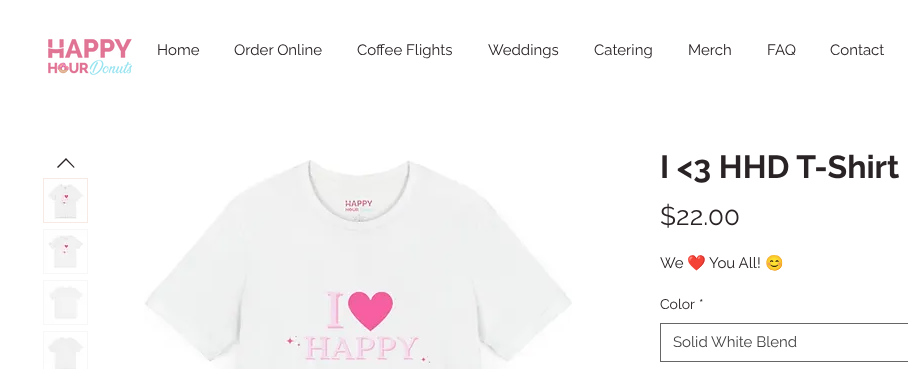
<svg xmlns="http://www.w3.org/2000/svg" width="908" height="369" viewBox="0 0 908 369">
  <rect width="100%" height="100%" fill="#ffffff"/>
  <image x="48" y="38" width="84" height="38" href="img1.png"/>
  <text x="157" y="55" font-family="Raleway" font-size="15" fill="#292325">Home</text>
  <text x="234" y="55" font-family="Raleway" font-size="15" fill="#292325">Order Online</text>
  <text x="357" y="55" font-family="Raleway" font-size="15" fill="#292325">Coffee Flights</text>
  <text x="488" y="55" font-family="Raleway" font-size="15" fill="#292325">Weddings</text>
  <text x="594" y="55" font-family="Raleway" font-size="15" fill="#292325">Catering</text>
  <text x="688" y="55" font-family="Raleway" font-size="15" fill="#292325">Merch</text>
  <text x="767" y="55" font-family="Raleway" font-size="15" fill="#292325">FAQ</text>
  <text x="830" y="55" font-family="Raleway" font-size="15" fill="#292325">Contact</text>
  <path d="M66 158L74.5 167L74 168L66 160L58 168L57 167Z" fill="#292325" fill-rule="evenodd"/>
  <rect x="43.5" y="178.5" width="44" height="44" fill="none" stroke="#f7e9e4"/>
  <image x="44" y="179" width="43" height="43" href="img2.png"/>
  <rect x="43" y="229" width="45" height="45" fill="#f7f7f7"/>
  <image x="44" y="230" width="43" height="43" href="img3.png"/>
  <rect x="43" y="280" width="45" height="45" fill="#f7f7f7"/>
  <image x="44" y="281" width="43" height="43" href="img4.png"/>
  <rect x="43" y="331" width="45" height="38" fill="#f7f7f7"/>
  <image x="44" y="332" width="43" height="37" href="img5.png"/>
  <image x="144" y="160" width="428" height="209" href="img6.png"/>
  <text x="660" y="178" font-family="Raleway" font-size="32" font-weight="bold" fill="#292325">I &lt;3 HHD T-Shirt</text>
  <text x="660" y="225" font-family="Raleway" font-size="26" fill="#292325">$22.00</text>
  <text x="660" y="268" font-family="Raleway" font-size="15" fill="#292325">We</text>
  <text x="687" y="268" font-family="Noto Color Emoji" font-size="15" fill="#292325">❤️</text>
  <text x="709" y="268" font-family="Raleway" font-size="15" fill="#292325">You All!</text>
  <text x="765" y="268" font-family="Noto Color Emoji" font-size="15" fill="#292325">😊</text>
  <text x="660" y="309" font-family="Raleway" font-size="14" fill="#292325">Color</text>
  <text x="699" y="309" font-family="Raleway" font-size="14" fill="#292325">*</text>
  <rect x="660.5" y="323.5" width="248" height="38" fill="none" stroke="#666666"/>
  <text x="673" y="347" font-family="Raleway" font-size="15" fill="#444444">Solid White Blend</text>
</svg>
